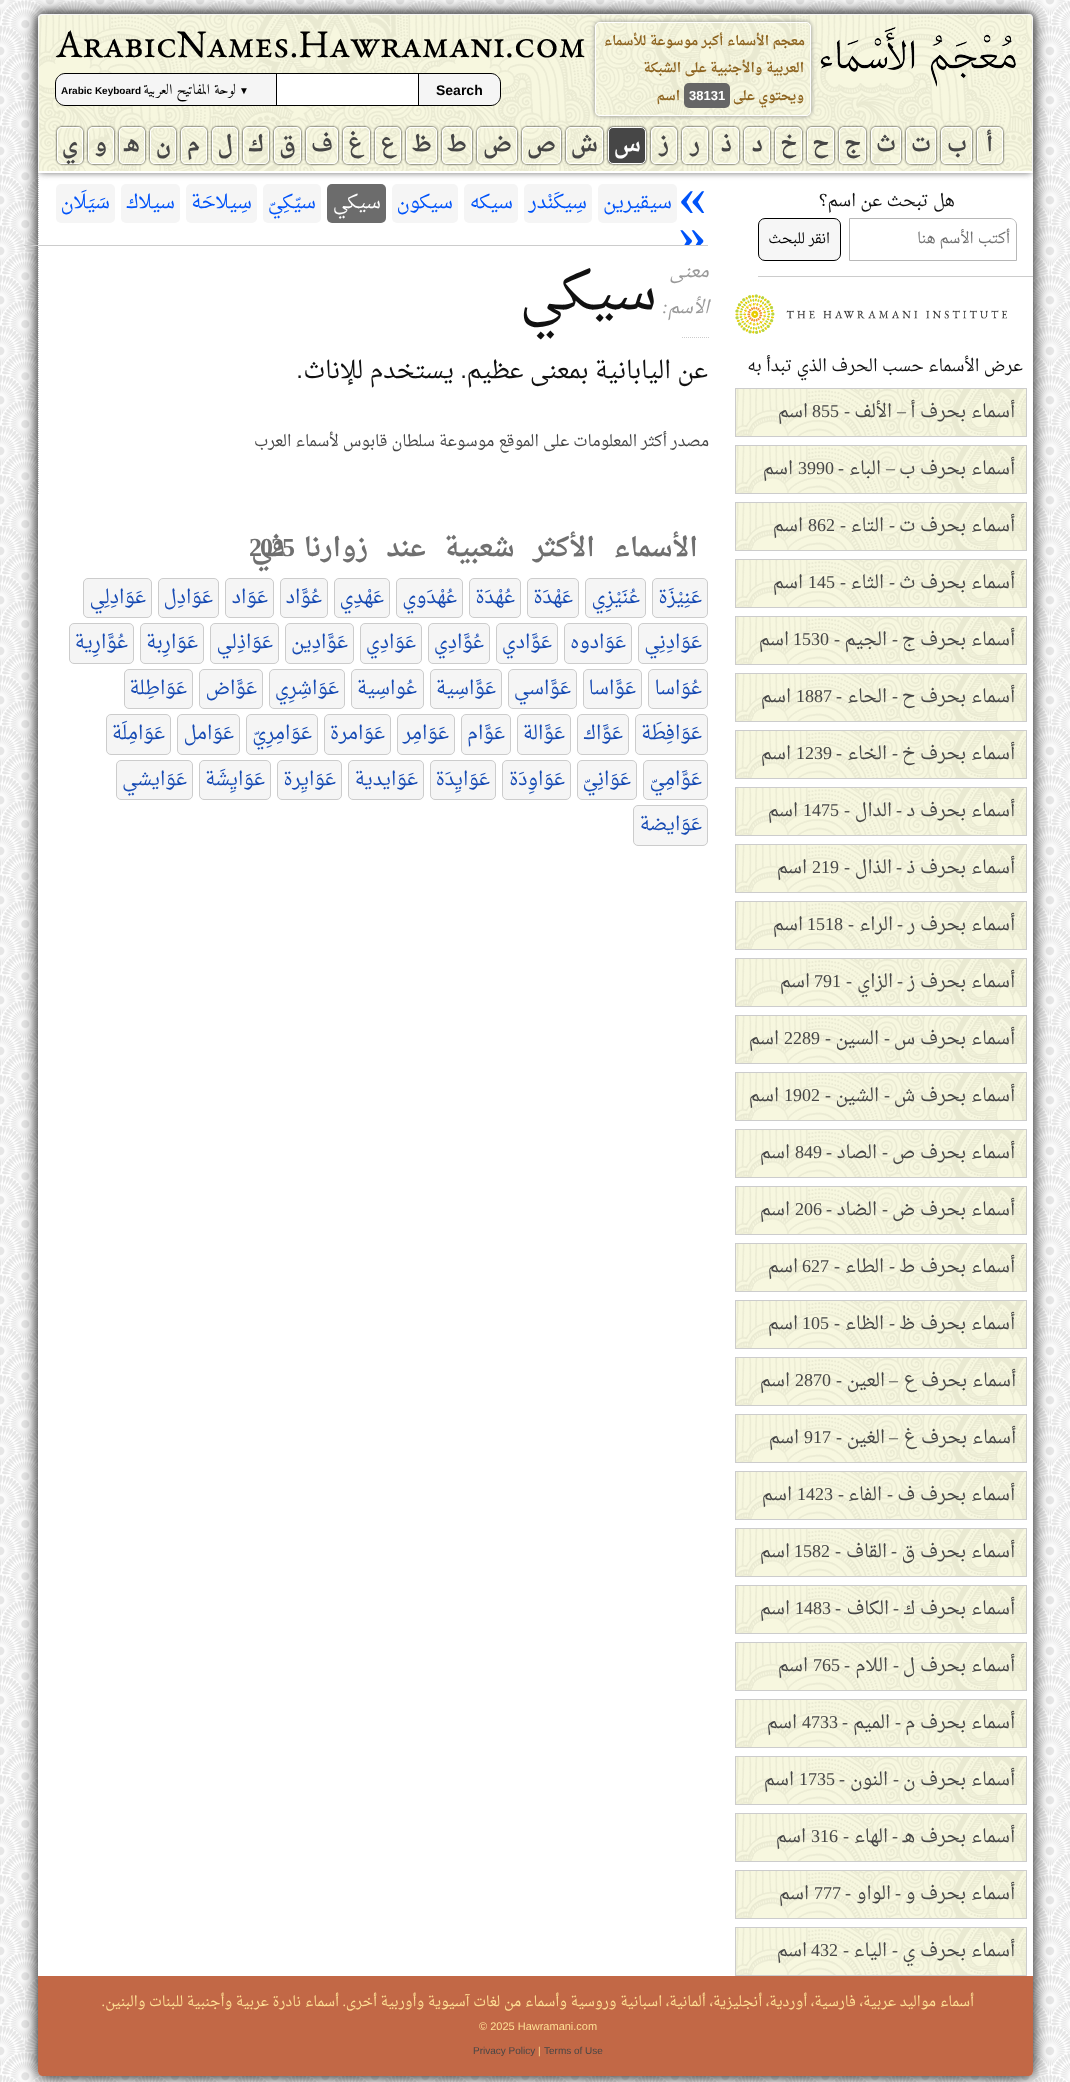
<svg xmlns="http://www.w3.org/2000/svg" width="1070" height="2082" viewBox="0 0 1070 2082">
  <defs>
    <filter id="blur1" x="-50%" y="-200%" width="200%" height="500%"><feGaussianBlur stdDeviation="8"/></filter>
    <filter id="blur2" x="-50%" y="-200%" width="200%" height="500%"><feGaussianBlur stdDeviation="3"/></filter>
    <clipPath id="clip1"><path d="M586 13H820V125H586ZM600 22H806C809 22 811 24 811 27V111C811 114 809 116 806 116H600C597 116 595 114 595 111V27C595 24 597 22 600 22Z" clip-rule="evenodd"/></clipPath>
    <filter id="blur3" x="-50%" y="-200%" width="200%" height="500%"><feGaussianBlur stdDeviation="2.5"/></filter>
    <clipPath id="clip2"><path d="M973 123H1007V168H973ZM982 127H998C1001 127 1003 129 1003 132V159C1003 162 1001 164 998 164H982C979 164 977 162 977 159V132C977 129 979 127 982 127Z" clip-rule="evenodd"/></clipPath>
    <filter id="blur4" x="-50%" y="-200%" width="200%" height="500%"><feGaussianBlur stdDeviation="1"/></filter>
    <clipPath id="clip3"><path d="M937 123H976V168H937ZM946 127H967C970 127 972 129 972 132V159C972 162 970 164 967 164H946C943 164 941 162 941 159V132C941 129 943 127 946 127Z" clip-rule="evenodd"/></clipPath>
    <clipPath id="clip4"><path d="M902 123H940V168H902ZM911 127H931C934 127 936 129 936 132V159C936 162 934 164 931 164H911C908 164 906 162 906 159V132C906 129 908 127 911 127Z" clip-rule="evenodd"/></clipPath>
    <clipPath id="clip5"><path d="M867 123H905V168H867ZM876 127H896C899 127 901 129 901 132V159C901 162 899 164 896 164H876C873 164 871 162 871 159V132C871 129 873 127 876 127Z" clip-rule="evenodd"/></clipPath>
    <clipPath id="clip6"><path d="M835 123H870V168H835ZM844 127H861C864 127 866 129 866 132V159C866 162 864 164 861 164H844C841 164 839 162 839 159V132C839 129 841 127 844 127Z" clip-rule="evenodd"/></clipPath>
    <clipPath id="clip7"><path d="M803 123H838V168H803ZM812 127H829C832 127 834 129 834 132V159C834 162 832 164 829 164H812C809 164 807 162 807 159V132C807 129 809 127 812 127Z" clip-rule="evenodd"/></clipPath>
    <clipPath id="clip8"><path d="M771 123H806V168H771ZM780 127H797C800 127 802 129 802 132V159C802 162 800 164 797 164H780C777 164 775 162 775 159V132C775 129 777 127 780 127Z" clip-rule="evenodd"/></clipPath>
    <clipPath id="clip9"><path d="M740 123H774V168H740ZM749 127H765C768 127 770 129 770 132V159C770 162 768 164 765 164H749C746 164 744 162 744 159V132C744 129 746 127 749 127Z" clip-rule="evenodd"/></clipPath>
    <clipPath id="clip10"><path d="M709 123H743V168H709ZM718 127H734C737 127 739 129 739 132V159C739 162 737 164 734 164H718C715 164 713 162 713 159V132C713 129 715 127 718 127Z" clip-rule="evenodd"/></clipPath>
    <clipPath id="clip11"><path d="M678 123H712V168H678ZM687 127H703C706 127 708 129 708 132V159C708 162 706 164 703 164H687C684 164 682 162 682 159V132C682 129 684 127 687 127Z" clip-rule="evenodd"/></clipPath>
    <clipPath id="clip12"><path d="M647 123H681V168H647ZM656 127H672C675 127 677 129 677 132V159C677 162 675 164 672 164H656C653 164 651 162 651 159V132C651 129 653 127 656 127Z" clip-rule="evenodd"/></clipPath>
    <clipPath id="clip13"><path d="M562 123H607V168H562ZM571 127H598C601 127 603 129 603 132V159C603 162 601 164 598 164H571C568 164 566 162 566 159V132C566 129 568 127 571 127Z" clip-rule="evenodd"/></clipPath>
    <clipPath id="clip14"><path d="M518 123H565V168H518ZM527 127H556C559 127 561 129 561 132V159C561 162 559 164 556 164H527C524 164 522 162 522 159V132C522 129 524 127 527 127Z" clip-rule="evenodd"/></clipPath>
    <clipPath id="clip15"><path d="M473 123H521V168H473ZM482 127H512C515 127 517 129 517 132V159C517 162 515 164 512 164H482C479 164 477 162 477 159V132C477 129 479 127 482 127Z" clip-rule="evenodd"/></clipPath>
    <clipPath id="clip16"><path d="M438 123H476V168H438ZM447 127H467C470 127 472 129 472 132V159C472 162 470 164 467 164H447C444 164 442 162 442 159V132C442 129 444 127 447 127Z" clip-rule="evenodd"/></clipPath>
    <clipPath id="clip17"><path d="M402 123H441V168H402ZM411 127H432C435 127 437 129 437 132V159C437 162 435 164 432 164H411C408 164 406 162 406 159V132C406 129 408 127 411 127Z" clip-rule="evenodd"/></clipPath>
    <clipPath id="clip18"><path d="M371 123H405V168H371ZM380 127H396C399 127 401 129 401 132V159C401 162 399 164 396 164H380C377 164 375 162 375 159V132C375 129 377 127 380 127Z" clip-rule="evenodd"/></clipPath>
    <clipPath id="clip19"><path d="M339 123H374V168H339ZM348 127H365C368 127 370 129 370 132V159C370 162 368 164 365 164H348C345 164 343 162 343 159V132C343 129 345 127 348 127Z" clip-rule="evenodd"/></clipPath>
    <clipPath id="clip20"><path d="M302 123H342V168H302ZM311 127H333C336 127 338 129 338 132V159C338 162 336 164 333 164H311C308 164 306 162 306 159V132C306 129 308 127 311 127Z" clip-rule="evenodd"/></clipPath>
    <clipPath id="clip21"><path d="M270 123H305V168H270ZM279 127H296C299 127 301 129 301 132V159C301 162 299 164 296 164H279C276 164 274 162 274 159V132C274 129 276 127 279 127Z" clip-rule="evenodd"/></clipPath>
    <clipPath id="clip22"><path d="M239 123H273V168H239ZM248 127H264C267 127 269 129 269 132V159C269 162 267 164 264 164H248C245 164 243 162 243 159V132C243 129 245 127 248 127Z" clip-rule="evenodd"/></clipPath>
    <clipPath id="clip23"><path d="M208 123H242V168H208ZM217 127H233C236 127 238 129 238 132V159C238 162 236 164 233 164H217C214 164 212 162 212 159V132C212 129 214 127 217 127Z" clip-rule="evenodd"/></clipPath>
    <clipPath id="clip24"><path d="M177 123H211V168H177ZM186 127H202C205 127 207 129 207 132V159C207 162 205 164 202 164H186C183 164 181 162 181 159V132C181 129 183 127 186 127Z" clip-rule="evenodd"/></clipPath>
    <clipPath id="clip25"><path d="M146 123H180V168H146ZM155 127H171C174 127 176 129 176 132V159C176 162 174 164 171 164H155C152 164 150 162 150 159V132C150 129 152 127 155 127Z" clip-rule="evenodd"/></clipPath>
    <clipPath id="clip26"><path d="M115 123H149V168H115ZM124 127H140C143 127 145 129 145 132V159C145 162 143 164 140 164H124C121 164 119 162 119 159V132C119 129 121 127 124 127Z" clip-rule="evenodd"/></clipPath>
    <clipPath id="clip27"><path d="M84 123H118V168H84ZM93 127H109C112 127 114 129 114 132V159C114 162 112 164 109 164H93C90 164 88 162 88 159V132C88 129 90 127 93 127Z" clip-rule="evenodd"/></clipPath>
    <clipPath id="clip28"><path d="M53 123H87V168H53ZM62 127H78C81 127 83 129 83 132V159C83 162 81 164 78 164H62C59 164 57 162 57 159V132C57 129 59 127 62 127Z" clip-rule="evenodd"/></clipPath>
    <clipPath id="clip29"><rect x="24" y="184" width="684" height="61"/></clipPath>
  </defs>
  <rect width="100%" height="100%" fill="#ffffff"/>
  <image x="0" y="0" width="1070" height="2082" href="img1.png"/>
  <rect x="38" y="14" width="995" height="2062" rx="5" fill="#000000" filter="url(#blur1)"/>
  <rect x="38" y="14" width="995" height="2062" rx="5" fill="#ffffff"/>
  <rect x="38" y="14" width="995" height="159" rx="5" fill="#6c6c6c" filter="url(#blur2)"/>
  <image x="38" y="14" width="995" height="159" href="img2.png"/>
  <path d="M43 14C42 14 40 14 39 15L40 16L43 15H1028L1031 16L1032 15C1031 14 1030 14 1028 14Z" fill="#f6f6f6"/>
  <path d="M1033 173V18L1032 15L1031 16C1032 17 1032 18 1032 19V171Z" fill="#f6f6f6"/>
  <path d="M1033 173L1032 171H39L38 173Z" fill="#ffffff"/>
  <path d="M38 173L39 171V19C39 18 40 17 40 16L39 15C38 16 38 18 38 19Z" fill="#f6f6f6"/>
  <image x="820" y="26" width="196" height="61" href="img3.png"/>
  <image x="55" y="30" width="530" height="28" href="img4.png"/>
  <g clip-path="url(#clip1)">
    <rect x="595" y="22" width="216" height="94" rx="5" fill="#8a8a8a" filter="url(#blur3)"/>
  </g>
  <rect x="595.5" y="22.5" width="215" height="93" rx="4.5" fill="none" stroke="#ffffff"/>
  <text x="805" y="45" font-family="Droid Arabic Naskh" font-size="13" font-weight="bold" direction="rtl" fill="#8e6521">معجم الأسماء أكبر موسوعة للأسماء</text>
  <text x="804" y="72" font-family="Droid Arabic Naskh" font-size="13" font-weight="bold" direction="rtl" fill="#8e6521">العربية والأجنبية على الشبكة</text>
  <text x="804" y="100" font-family="Droid Arabic Naskh" font-size="13" font-weight="bold" direction="rtl" fill="#8e6521">ويحتوي على</text>
  <rect x="684" y="83" width="46" height="25" rx="5" fill="#666666"/>
  <text x="689" y="100" font-family="Liberation Sans" font-size="13" font-weight="bold" fill="#ffffff">38131</text>
  <text x="680" y="100" font-family="Droid Arabic Naskh" font-size="13" font-weight="bold" direction="rtl" fill="#8e6521">اسم</text>
  <g clip-path="url(#clip2)">
    <rect x="977" y="127" width="26" height="37" rx="5" fill="#000000" filter="url(#blur4)"/>
  </g>
  <rect x="977.5" y="127.5" width="25" height="36" rx="4.5" fill="none" stroke="#ffffff"/>
  <text x="993" y="151" font-family="Droid Arabic Naskh" font-size="22" font-weight="bold" direction="rtl" fill="#464646">أ</text>
  <g clip-path="url(#clip3)">
    <rect x="941" y="127" width="31" height="37" rx="5" fill="#000000" filter="url(#blur4)"/>
  </g>
  <rect x="941.5" y="127.5" width="30" height="36" rx="4.5" fill="none" stroke="#ffffff"/>
  <text x="967" y="151" font-family="Droid Arabic Naskh" font-size="22" font-weight="bold" direction="rtl" fill="#464646">ب</text>
  <g clip-path="url(#clip4)">
    <rect x="906" y="127" width="30" height="37" rx="5" fill="#000000" filter="url(#blur4)"/>
  </g>
  <rect x="906.5" y="127.5" width="29" height="36" rx="4.5" fill="none" stroke="#ffffff"/>
  <text x="931" y="151" font-family="Droid Arabic Naskh" font-size="22" font-weight="bold" direction="rtl" fill="#464646">ت</text>
  <g clip-path="url(#clip5)">
    <rect x="871" y="127" width="30" height="37" rx="5" fill="#000000" filter="url(#blur4)"/>
  </g>
  <rect x="871.5" y="127.5" width="29" height="36" rx="4.5" fill="none" stroke="#ffffff"/>
  <text x="896" y="151" font-family="Droid Arabic Naskh" font-size="22" font-weight="bold" direction="rtl" fill="#464646">ث</text>
  <g clip-path="url(#clip6)">
    <rect x="839" y="127" width="27" height="37" rx="5" fill="#000000" filter="url(#blur4)"/>
  </g>
  <rect x="839.5" y="127.5" width="26" height="36" rx="4.5" fill="none" stroke="#ffffff"/>
  <text x="861" y="151" font-family="Droid Arabic Naskh" font-size="22" font-weight="bold" direction="rtl" fill="#464646">ج</text>
  <g clip-path="url(#clip7)">
    <rect x="807" y="127" width="27" height="37" rx="5" fill="#000000" filter="url(#blur4)"/>
  </g>
  <rect x="807.5" y="127.5" width="26" height="36" rx="4.5" fill="none" stroke="#ffffff"/>
  <text x="829" y="151" font-family="Droid Arabic Naskh" font-size="22" font-weight="bold" direction="rtl" fill="#464646">ح</text>
  <g clip-path="url(#clip8)">
    <rect x="775" y="127" width="27" height="37" rx="5" fill="#000000" filter="url(#blur4)"/>
  </g>
  <rect x="775.5" y="127.5" width="26" height="36" rx="4.5" fill="none" stroke="#ffffff"/>
  <text x="797" y="151" font-family="Droid Arabic Naskh" font-size="22" font-weight="bold" direction="rtl" fill="#464646">خ</text>
  <g clip-path="url(#clip9)">
    <rect x="744" y="127" width="26" height="37" rx="5" fill="#000000" filter="url(#blur4)"/>
  </g>
  <rect x="744.5" y="127.5" width="25" height="36" rx="4.5" fill="none" stroke="#ffffff"/>
  <text x="763" y="151" font-family="Droid Arabic Naskh" font-size="22" font-weight="bold" direction="rtl" fill="#464646">د</text>
  <g clip-path="url(#clip10)">
    <rect x="713" y="127" width="26" height="37" rx="5" fill="#000000" filter="url(#blur4)"/>
  </g>
  <rect x="713.5" y="127.5" width="25" height="36" rx="4.5" fill="none" stroke="#ffffff"/>
  <text x="732" y="151" font-family="Droid Arabic Naskh" font-size="22" font-weight="bold" direction="rtl" fill="#464646">ذ</text>
  <g clip-path="url(#clip11)">
    <rect x="682" y="127" width="26" height="37" rx="5" fill="#000000" filter="url(#blur4)"/>
  </g>
  <rect x="682.5" y="127.5" width="25" height="36" rx="4.5" fill="none" stroke="#ffffff"/>
  <text x="700" y="151" font-family="Droid Arabic Naskh" font-size="22" font-weight="bold" direction="rtl" fill="#464646">ر</text>
  <g clip-path="url(#clip12)">
    <rect x="651" y="127" width="26" height="37" rx="5" fill="#000000" filter="url(#blur4)"/>
  </g>
  <rect x="651.5" y="127.5" width="25" height="36" rx="4.5" fill="none" stroke="#ffffff"/>
  <text x="669" y="151" font-family="Droid Arabic Naskh" font-size="22" font-weight="bold" direction="rtl" fill="#464646">ز</text>
  <rect x="608" y="127" width="38" height="37" rx="5" fill="#000000" filter="url(#blur4)"/>
  <rect x="608.5" y="127.5" width="37" height="36" rx="4.5" fill="#464646" stroke="#ffffff"/>
  <text x="641" y="151" font-family="Droid Arabic Naskh" font-size="22" font-weight="bold" direction="rtl" fill="#ffffff">س</text>
  <g clip-path="url(#clip13)">
    <rect x="566" y="127" width="37" height="37" rx="5" fill="#000000" filter="url(#blur4)"/>
  </g>
  <rect x="566.5" y="127.5" width="36" height="36" rx="4.5" fill="none" stroke="#ffffff"/>
  <text x="598" y="151" font-family="Droid Arabic Naskh" font-size="22" font-weight="bold" direction="rtl" fill="#464646">ش</text>
  <g clip-path="url(#clip14)">
    <rect x="522" y="127" width="39" height="37" rx="5" fill="#000000" filter="url(#blur4)"/>
  </g>
  <rect x="522.5" y="127.5" width="38" height="36" rx="4.5" fill="none" stroke="#ffffff"/>
  <text x="556" y="151" font-family="Droid Arabic Naskh" font-size="22" font-weight="bold" direction="rtl" fill="#464646">ص</text>
  <g clip-path="url(#clip15)">
    <rect x="477" y="127" width="40" height="37" rx="5" fill="#000000" filter="url(#blur4)"/>
  </g>
  <rect x="477.5" y="127.5" width="39" height="36" rx="4.5" fill="none" stroke="#ffffff"/>
  <text x="512" y="151" font-family="Droid Arabic Naskh" font-size="22" font-weight="bold" direction="rtl" fill="#464646">ض</text>
  <g clip-path="url(#clip16)">
    <rect x="442" y="127" width="30" height="37" rx="5" fill="#000000" filter="url(#blur4)"/>
  </g>
  <rect x="442.5" y="127.5" width="29" height="36" rx="4.5" fill="none" stroke="#ffffff"/>
  <text x="467" y="151" font-family="Droid Arabic Naskh" font-size="22" font-weight="bold" direction="rtl" fill="#464646">ط</text>
  <g clip-path="url(#clip17)">
    <rect x="406" y="127" width="31" height="37" rx="5" fill="#000000" filter="url(#blur4)"/>
  </g>
  <rect x="406.5" y="127.5" width="30" height="36" rx="4.5" fill="none" stroke="#ffffff"/>
  <text x="432" y="151" font-family="Droid Arabic Naskh" font-size="22" font-weight="bold" direction="rtl" fill="#464646">ظ</text>
  <g clip-path="url(#clip18)">
    <rect x="375" y="127" width="26" height="37" rx="5" fill="#000000" filter="url(#blur4)"/>
  </g>
  <rect x="375.5" y="127.5" width="25" height="36" rx="4.5" fill="none" stroke="#ffffff"/>
  <text x="396" y="151" font-family="Droid Arabic Naskh" font-size="22" font-weight="bold" direction="rtl" fill="#464646">ع</text>
  <g clip-path="url(#clip19)">
    <rect x="343" y="127" width="27" height="37" rx="5" fill="#000000" filter="url(#blur4)"/>
  </g>
  <rect x="343.5" y="127.5" width="26" height="36" rx="4.5" fill="none" stroke="#ffffff"/>
  <text x="365" y="151" font-family="Droid Arabic Naskh" font-size="22" font-weight="bold" direction="rtl" fill="#464646">غ</text>
  <g clip-path="url(#clip20)">
    <rect x="306" y="127" width="32" height="37" rx="5" fill="#000000" filter="url(#blur4)"/>
  </g>
  <rect x="306.5" y="127.5" width="31" height="36" rx="4.5" fill="none" stroke="#ffffff"/>
  <text x="333" y="151" font-family="Droid Arabic Naskh" font-size="22" font-weight="bold" direction="rtl" fill="#464646">ف</text>
  <g clip-path="url(#clip21)">
    <rect x="274" y="127" width="27" height="37" rx="5" fill="#000000" filter="url(#blur4)"/>
  </g>
  <rect x="274.5" y="127.5" width="26" height="36" rx="4.5" fill="none" stroke="#ffffff"/>
  <text x="296" y="151" font-family="Droid Arabic Naskh" font-size="22" font-weight="bold" direction="rtl" fill="#464646">ق</text>
  <g clip-path="url(#clip22)">
    <rect x="243" y="127" width="26" height="37" rx="5" fill="#000000" filter="url(#blur4)"/>
  </g>
  <rect x="243.5" y="127.5" width="25" height="36" rx="4.5" fill="none" stroke="#ffffff"/>
  <text x="264" y="151" font-family="Droid Arabic Naskh" font-size="22" font-weight="bold" direction="rtl" fill="#464646">ك</text>
  <g clip-path="url(#clip23)">
    <rect x="212" y="127" width="26" height="37" rx="5" fill="#000000" filter="url(#blur4)"/>
  </g>
  <rect x="212.5" y="127.5" width="25" height="36" rx="4.5" fill="none" stroke="#ffffff"/>
  <text x="233" y="151" font-family="Droid Arabic Naskh" font-size="22" font-weight="bold" direction="rtl" fill="#464646">ل</text>
  <g clip-path="url(#clip24)">
    <rect x="181" y="127" width="26" height="37" rx="5" fill="#000000" filter="url(#blur4)"/>
  </g>
  <rect x="181.5" y="127.5" width="25" height="36" rx="4.5" fill="none" stroke="#ffffff"/>
  <text x="200" y="151" font-family="Droid Arabic Naskh" font-size="22" font-weight="bold" direction="rtl" fill="#464646">م</text>
  <g clip-path="url(#clip25)">
    <rect x="150" y="127" width="26" height="37" rx="5" fill="#000000" filter="url(#blur4)"/>
  </g>
  <rect x="150.5" y="127.5" width="25" height="36" rx="4.5" fill="none" stroke="#ffffff"/>
  <text x="171" y="151" font-family="Droid Arabic Naskh" font-size="22" font-weight="bold" direction="rtl" fill="#464646">ن</text>
  <g clip-path="url(#clip26)">
    <rect x="119" y="127" width="26" height="37" rx="5" fill="#000000" filter="url(#blur4)"/>
  </g>
  <rect x="119.5" y="127.5" width="25" height="36" rx="4.5" fill="none" stroke="#ffffff"/>
  <text x="140" y="151" font-family="Droid Arabic Naskh" font-size="22" font-weight="bold" direction="rtl" fill="#464646">هـ</text>
  <g clip-path="url(#clip27)">
    <rect x="88" y="127" width="26" height="37" rx="5" fill="#000000" filter="url(#blur4)"/>
  </g>
  <rect x="88.5" y="127.5" width="25" height="36" rx="4.5" fill="none" stroke="#ffffff"/>
  <text x="107" y="151" font-family="Droid Arabic Naskh" font-size="22" font-weight="bold" direction="rtl" fill="#464646">و</text>
  <g clip-path="url(#clip28)">
    <rect x="57" y="127" width="26" height="37" rx="5" fill="#000000" filter="url(#blur4)"/>
  </g>
  <rect x="57.5" y="127.5" width="25" height="36" rx="4.5" fill="none" stroke="#ffffff"/>
  <text x="78" y="151" font-family="Droid Arabic Naskh" font-size="22" font-weight="bold" direction="rtl" fill="#464646">ي</text>
  <path d="M418.5 73.5H491C496 73.5 500.5 78 500.5 83V96C500.5 101 496 105.5 491 105.5H418.5Z" fill="#f5f5f5" stroke="#000000"/>
  <text x="436" y="95" font-family="Liberation Sans" font-size="14" font-weight="bold" fill="#000000">Search</text>
  <path d="M65 73.5H276.5V105.5H65C60 105.5 55.5 101 55.5 96V83C55.5 78 60 73.5 65 73.5Z" fill="#f5f5f5" stroke="#000000"/>
  <rect x="276.5" y="73.5" width="142" height="32" fill="#ffffff" stroke="#000000"/>
  <text x="239" y="94" font-family="Liberation Sans" font-size="10" fill="#000000">▼</text>
  <text x="236" y="94" font-family="Amiri" font-size="14.5" direction="rtl" fill="#000000">لوحة المفاتيح العربية</text>
  <text x="61" y="94" font-family="Liberation Sans" font-size="10" font-weight="bold" fill="#000000">Arabic Keyboard</text>
  <rect x="758" y="276" width="275" height="1" fill="#cccccc"/>
  <text x="955" y="206" font-family="Droid Arabic Naskh" font-size="17" direction="rtl" fill="#111111">هل تبحث عن اسم؟</text>
  <path d="M849.5 218.5H1010C1013.5 218.5 1016.5 221.5 1016.5 225V260.5H849.5Z" fill="none" stroke="#b7b7b7"/>
  <text x="1010" y="243" font-family="Droid Arabic Naskh" font-size="15" direction="rtl" fill="#707070">أكتب الأسم هنا</text>
  <rect x="758.5" y="218.5" width="82" height="42" rx="6.5" fill="#f6f6f6" stroke="#000000"/>
  <text x="830" y="243" font-family="Droid Arabic Naskh" font-size="14" direction="rtl" fill="#000000">انقر للبحث</text>
  <image x="735" y="294" width="272" height="40" href="img5.png"/>
  <text x="1023" y="371" font-family="Droid Arabic Naskh" font-size="16.75" direction="rtl" fill="#111111">عرض الأسماء حسب الحرف الذي تبدأ به</text>
  <image x="736" y="389" width="290" height="47" href="img6.png"/>
  <rect x="735.5" y="388.5" width="291" height="48" fill="none" stroke="#cccccc"/>
  <text x="1015" y="417" font-family="Droid Arabic Naskh" font-size="18" direction="rtl" fill="#464646">أسماء بحرف أ</text>
  <text x="906" y="417" font-family="Liberation Serif" font-size="18" direction="rtl" fill="#464646">–</text>
  <text x="892" y="417" font-family="Droid Arabic Naskh" font-size="18" direction="rtl" fill="#464646">الألف</text>
  <text x="850" y="417" font-family="Liberation Serif" font-size="18" direction="rtl" fill="#464646">-</text>
  <text x="812" y="417" font-family="Liberation Serif" font-size="18" fill="#464646">855</text>
  <text x="808" y="417" font-family="Droid Arabic Naskh" font-size="18" direction="rtl" fill="#464646">اسم</text>
  <image x="736" y="446" width="290" height="47" href="img6.png"/>
  <rect x="735.5" y="445.5" width="291" height="48" fill="none" stroke="#cccccc"/>
  <text x="1015" y="474" font-family="Droid Arabic Naskh" font-size="18" direction="rtl" fill="#464646">أسماء بحرف ب</text>
  <text x="895" y="474" font-family="Liberation Serif" font-size="18" direction="rtl" fill="#464646">–</text>
  <text x="881" y="474" font-family="Droid Arabic Naskh" font-size="18" direction="rtl" fill="#464646">الباء</text>
  <text x="844" y="474" font-family="Liberation Serif" font-size="18" direction="rtl" fill="#464646">-</text>
  <text x="798" y="474" font-family="Liberation Serif" font-size="18" fill="#464646">3990</text>
  <text x="793" y="474" font-family="Droid Arabic Naskh" font-size="18" direction="rtl" fill="#464646">اسم</text>
  <image x="736" y="503" width="290" height="47" href="img6.png"/>
  <rect x="735.5" y="502.5" width="291" height="48" fill="none" stroke="#cccccc"/>
  <text x="1015" y="531" font-family="Droid Arabic Naskh" font-size="18" direction="rtl" fill="#464646">أسماء بحرف ت</text>
  <text x="895" y="531" font-family="Liberation Serif" font-size="18" direction="rtl" fill="#464646">-</text>
  <text x="884" y="531" font-family="Droid Arabic Naskh" font-size="18" direction="rtl" fill="#464646">التاء</text>
  <text x="846" y="531" font-family="Liberation Serif" font-size="18" direction="rtl" fill="#464646">-</text>
  <text x="808" y="531" font-family="Liberation Serif" font-size="18" fill="#464646">862</text>
  <text x="803" y="531" font-family="Droid Arabic Naskh" font-size="18" direction="rtl" fill="#464646">اسم</text>
  <image x="736" y="560" width="290" height="47" href="img6.png"/>
  <rect x="735.5" y="559.5" width="291" height="48" fill="none" stroke="#cccccc"/>
  <text x="1015" y="588" font-family="Droid Arabic Naskh" font-size="18" direction="rtl" fill="#464646">أسماء بحرف ث</text>
  <text x="895" y="588" font-family="Liberation Serif" font-size="18" direction="rtl" fill="#464646">-</text>
  <text x="884" y="588" font-family="Droid Arabic Naskh" font-size="18" direction="rtl" fill="#464646">الثاء</text>
  <text x="846" y="588" font-family="Liberation Serif" font-size="18" direction="rtl" fill="#464646">-</text>
  <text x="808" y="588" font-family="Liberation Serif" font-size="18" fill="#464646">145</text>
  <text x="803" y="588" font-family="Droid Arabic Naskh" font-size="18" direction="rtl" fill="#464646">اسم</text>
  <image x="736" y="617" width="290" height="47" href="img6.png"/>
  <rect x="735.5" y="616.5" width="291" height="48" fill="none" stroke="#cccccc"/>
  <text x="1015" y="645" font-family="Droid Arabic Naskh" font-size="18" direction="rtl" fill="#464646">أسماء بحرف ج</text>
  <text x="898" y="645" font-family="Liberation Serif" font-size="18" direction="rtl" fill="#464646">-</text>
  <text x="887" y="645" font-family="Droid Arabic Naskh" font-size="18" direction="rtl" fill="#464646">الجيم</text>
  <text x="840" y="645" font-family="Liberation Serif" font-size="18" direction="rtl" fill="#464646">-</text>
  <text x="793" y="645" font-family="Liberation Serif" font-size="18" fill="#464646">1530</text>
  <text x="789" y="645" font-family="Droid Arabic Naskh" font-size="18" direction="rtl" fill="#464646">اسم</text>
  <image x="736" y="674" width="290" height="47" href="img6.png"/>
  <rect x="735.5" y="673.5" width="291" height="48" fill="none" stroke="#cccccc"/>
  <text x="1015" y="702" font-family="Droid Arabic Naskh" font-size="18" direction="rtl" fill="#464646">أسماء بحرف ح</text>
  <text x="898" y="702" font-family="Liberation Serif" font-size="18" direction="rtl" fill="#464646">-</text>
  <text x="887" y="702" font-family="Droid Arabic Naskh" font-size="18" direction="rtl" fill="#464646">الحاء</text>
  <text x="842" y="702" font-family="Liberation Serif" font-size="18" direction="rtl" fill="#464646">-</text>
  <text x="796" y="702" font-family="Liberation Serif" font-size="18" fill="#464646">1887</text>
  <text x="791" y="702" font-family="Droid Arabic Naskh" font-size="18" direction="rtl" fill="#464646">اسم</text>
  <image x="736" y="731" width="290" height="47" href="img6.png"/>
  <rect x="735.5" y="730.5" width="291" height="48" fill="none" stroke="#cccccc"/>
  <text x="1015" y="759" font-family="Droid Arabic Naskh" font-size="18" direction="rtl" fill="#464646">أسماء بحرف خ</text>
  <text x="898" y="759" font-family="Liberation Serif" font-size="18" direction="rtl" fill="#464646">-</text>
  <text x="887" y="759" font-family="Droid Arabic Naskh" font-size="18" direction="rtl" fill="#464646">الخاء</text>
  <text x="842" y="759" font-family="Liberation Serif" font-size="18" direction="rtl" fill="#464646">-</text>
  <text x="796" y="759" font-family="Liberation Serif" font-size="18" fill="#464646">1239</text>
  <text x="791" y="759" font-family="Droid Arabic Naskh" font-size="18" direction="rtl" fill="#464646">اسم</text>
  <image x="736" y="788" width="290" height="47" href="img6.png"/>
  <rect x="735.5" y="787.5" width="291" height="48" fill="none" stroke="#cccccc"/>
  <text x="1015" y="816" font-family="Droid Arabic Naskh" font-size="18" direction="rtl" fill="#464646">أسماء بحرف د</text>
  <text x="902" y="816" font-family="Liberation Serif" font-size="18" direction="rtl" fill="#464646">-</text>
  <text x="892" y="816" font-family="Droid Arabic Naskh" font-size="18" direction="rtl" fill="#464646">الدال</text>
  <text x="850" y="816" font-family="Liberation Serif" font-size="18" direction="rtl" fill="#464646">-</text>
  <text x="803" y="816" font-family="Liberation Serif" font-size="18" fill="#464646">1475</text>
  <text x="798" y="816" font-family="Droid Arabic Naskh" font-size="18" direction="rtl" fill="#464646">اسم</text>
  <image x="736" y="845" width="290" height="47" href="img6.png"/>
  <rect x="735.5" y="844.5" width="291" height="48" fill="none" stroke="#cccccc"/>
  <text x="1015" y="873" font-family="Droid Arabic Naskh" font-size="18" direction="rtl" fill="#464646">أسماء بحرف ذ</text>
  <text x="902" y="873" font-family="Liberation Serif" font-size="18" direction="rtl" fill="#464646">-</text>
  <text x="892" y="873" font-family="Droid Arabic Naskh" font-size="18" direction="rtl" fill="#464646">الذال</text>
  <text x="850" y="873" font-family="Liberation Serif" font-size="18" direction="rtl" fill="#464646">-</text>
  <text x="812" y="873" font-family="Liberation Serif" font-size="18" fill="#464646">219</text>
  <text x="807" y="873" font-family="Droid Arabic Naskh" font-size="18" direction="rtl" fill="#464646">اسم</text>
  <image x="736" y="902" width="290" height="47" href="img6.png"/>
  <rect x="735.5" y="901.5" width="291" height="48" fill="none" stroke="#cccccc"/>
  <text x="1015" y="930" font-family="Droid Arabic Naskh" font-size="18" direction="rtl" fill="#464646">أسماء بحرف ر</text>
  <text x="903" y="930" font-family="Liberation Serif" font-size="18" direction="rtl" fill="#464646">-</text>
  <text x="893" y="930" font-family="Droid Arabic Naskh" font-size="18" direction="rtl" fill="#464646">الراء</text>
  <text x="854" y="930" font-family="Liberation Serif" font-size="18" direction="rtl" fill="#464646">-</text>
  <text x="807" y="930" font-family="Liberation Serif" font-size="18" fill="#464646">1518</text>
  <text x="803" y="930" font-family="Droid Arabic Naskh" font-size="18" direction="rtl" fill="#464646">اسم</text>
  <image x="736" y="959" width="290" height="47" href="img6.png"/>
  <rect x="735.5" y="958.5" width="291" height="48" fill="none" stroke="#cccccc"/>
  <text x="1015" y="987" font-family="Droid Arabic Naskh" font-size="18" direction="rtl" fill="#464646">أسماء بحرف ز</text>
  <text x="903" y="987" font-family="Liberation Serif" font-size="18" direction="rtl" fill="#464646">-</text>
  <text x="893" y="987" font-family="Droid Arabic Naskh" font-size="18" direction="rtl" fill="#464646">الزاي</text>
  <text x="852" y="987" font-family="Liberation Serif" font-size="18" direction="rtl" fill="#464646">-</text>
  <text x="814" y="987" font-family="Liberation Serif" font-size="18" fill="#464646">791</text>
  <text x="810" y="987" font-family="Droid Arabic Naskh" font-size="18" direction="rtl" fill="#464646">اسم</text>
  <image x="736" y="1016" width="290" height="47" href="img6.png"/>
  <rect x="735.5" y="1015.5" width="291" height="48" fill="none" stroke="#cccccc"/>
  <text x="1015" y="1044" font-family="Droid Arabic Naskh" font-size="18" direction="rtl" fill="#464646">أسماء بحرف س</text>
  <text x="890" y="1044" font-family="Liberation Serif" font-size="18" direction="rtl" fill="#464646">-</text>
  <text x="879" y="1044" font-family="Droid Arabic Naskh" font-size="18" direction="rtl" fill="#464646">السين</text>
  <text x="831" y="1044" font-family="Liberation Serif" font-size="18" direction="rtl" fill="#464646">-</text>
  <text x="784" y="1044" font-family="Liberation Serif" font-size="18" fill="#464646">2289</text>
  <text x="779" y="1044" font-family="Droid Arabic Naskh" font-size="18" direction="rtl" fill="#464646">اسم</text>
  <image x="736" y="1073" width="290" height="47" href="img6.png"/>
  <rect x="735.5" y="1072.5" width="291" height="48" fill="none" stroke="#cccccc"/>
  <text x="1015" y="1101" font-family="Droid Arabic Naskh" font-size="18" direction="rtl" fill="#464646">أسماء بحرف ش</text>
  <text x="890" y="1101" font-family="Liberation Serif" font-size="18" direction="rtl" fill="#464646">-</text>
  <text x="879" y="1101" font-family="Droid Arabic Naskh" font-size="18" direction="rtl" fill="#464646">الشين</text>
  <text x="831" y="1101" font-family="Liberation Serif" font-size="18" direction="rtl" fill="#464646">-</text>
  <text x="784" y="1101" font-family="Liberation Serif" font-size="18" fill="#464646">1902</text>
  <text x="779" y="1101" font-family="Droid Arabic Naskh" font-size="18" direction="rtl" fill="#464646">اسم</text>
  <image x="736" y="1130" width="290" height="47" href="img6.png"/>
  <rect x="735.5" y="1129.5" width="291" height="48" fill="none" stroke="#cccccc"/>
  <text x="1015" y="1158" font-family="Droid Arabic Naskh" font-size="18" direction="rtl" fill="#464646">أسماء بحرف ص</text>
  <text x="888" y="1158" font-family="Liberation Serif" font-size="18" direction="rtl" fill="#464646">-</text>
  <text x="877" y="1158" font-family="Droid Arabic Naskh" font-size="18" direction="rtl" fill="#464646">الصاد</text>
  <text x="832" y="1158" font-family="Liberation Serif" font-size="18" direction="rtl" fill="#464646">-</text>
  <text x="795" y="1158" font-family="Liberation Serif" font-size="18" fill="#464646">849</text>
  <text x="790" y="1158" font-family="Droid Arabic Naskh" font-size="18" direction="rtl" fill="#464646">اسم</text>
  <image x="736" y="1187" width="290" height="47" href="img6.png"/>
  <rect x="735.5" y="1186.5" width="291" height="48" fill="none" stroke="#cccccc"/>
  <text x="1015" y="1215" font-family="Droid Arabic Naskh" font-size="18" direction="rtl" fill="#464646">أسماء بحرف ض</text>
  <text x="888" y="1215" font-family="Liberation Serif" font-size="18" direction="rtl" fill="#464646">-</text>
  <text x="877" y="1215" font-family="Droid Arabic Naskh" font-size="18" direction="rtl" fill="#464646">الضاد</text>
  <text x="832" y="1215" font-family="Liberation Serif" font-size="18" direction="rtl" fill="#464646">-</text>
  <text x="795" y="1215" font-family="Liberation Serif" font-size="18" fill="#464646">206</text>
  <text x="790" y="1215" font-family="Droid Arabic Naskh" font-size="18" direction="rtl" fill="#464646">اسم</text>
  <image x="736" y="1244" width="290" height="47" href="img6.png"/>
  <rect x="735.5" y="1243.5" width="291" height="48" fill="none" stroke="#cccccc"/>
  <text x="1015" y="1272" font-family="Droid Arabic Naskh" font-size="18" direction="rtl" fill="#464646">أسماء بحرف ط</text>
  <text x="895" y="1272" font-family="Liberation Serif" font-size="18" direction="rtl" fill="#464646">-</text>
  <text x="884" y="1272" font-family="Droid Arabic Naskh" font-size="18" direction="rtl" fill="#464646">الطاء</text>
  <text x="840" y="1272" font-family="Liberation Serif" font-size="18" direction="rtl" fill="#464646">-</text>
  <text x="802" y="1272" font-family="Liberation Serif" font-size="18" fill="#464646">627</text>
  <text x="798" y="1272" font-family="Droid Arabic Naskh" font-size="18" direction="rtl" fill="#464646">اسم</text>
  <image x="736" y="1301" width="290" height="47" href="img6.png"/>
  <rect x="735.5" y="1300.5" width="291" height="48" fill="none" stroke="#cccccc"/>
  <text x="1015" y="1329" font-family="Droid Arabic Naskh" font-size="18" direction="rtl" fill="#464646">أسماء بحرف ظ</text>
  <text x="895" y="1329" font-family="Liberation Serif" font-size="18" direction="rtl" fill="#464646">-</text>
  <text x="884" y="1329" font-family="Droid Arabic Naskh" font-size="18" direction="rtl" fill="#464646">الظاء</text>
  <text x="840" y="1329" font-family="Liberation Serif" font-size="18" direction="rtl" fill="#464646">-</text>
  <text x="802" y="1329" font-family="Liberation Serif" font-size="18" fill="#464646">105</text>
  <text x="798" y="1329" font-family="Droid Arabic Naskh" font-size="18" direction="rtl" fill="#464646">اسم</text>
  <image x="736" y="1358" width="290" height="47" href="img6.png"/>
  <rect x="735.5" y="1357.5" width="291" height="48" fill="none" stroke="#cccccc"/>
  <text x="1016" y="1386" font-family="Droid Arabic Naskh" font-size="18" direction="rtl" fill="#464646">أسماء بحرف ع</text>
  <text x="898" y="1386" font-family="Liberation Serif" font-size="18" direction="rtl" fill="#464646">–</text>
  <text x="885" y="1386" font-family="Droid Arabic Naskh" font-size="18" direction="rtl" fill="#464646">العين</text>
  <text x="842" y="1386" font-family="Liberation Serif" font-size="18" direction="rtl" fill="#464646">-</text>
  <text x="795" y="1386" font-family="Liberation Serif" font-size="18" fill="#464646">2870</text>
  <text x="790" y="1386" font-family="Droid Arabic Naskh" font-size="18" direction="rtl" fill="#464646">اسم</text>
  <image x="736" y="1415" width="290" height="47" href="img6.png"/>
  <rect x="735.5" y="1414.5" width="291" height="48" fill="none" stroke="#cccccc"/>
  <text x="1016" y="1443" font-family="Droid Arabic Naskh" font-size="18" direction="rtl" fill="#464646">أسماء بحرف غ</text>
  <text x="898" y="1443" font-family="Liberation Serif" font-size="18" direction="rtl" fill="#464646">–</text>
  <text x="885" y="1443" font-family="Droid Arabic Naskh" font-size="18" direction="rtl" fill="#464646">الغين</text>
  <text x="842" y="1443" font-family="Liberation Serif" font-size="18" direction="rtl" fill="#464646">-</text>
  <text x="804" y="1443" font-family="Liberation Serif" font-size="18" fill="#464646">917</text>
  <text x="799" y="1443" font-family="Droid Arabic Naskh" font-size="18" direction="rtl" fill="#464646">اسم</text>
  <image x="736" y="1472" width="290" height="47" href="img6.png"/>
  <rect x="735.5" y="1471.5" width="291" height="48" fill="none" stroke="#cccccc"/>
  <text x="1015" y="1500" font-family="Droid Arabic Naskh" font-size="18" direction="rtl" fill="#464646">أسماء بحرف ف</text>
  <text x="893" y="1500" font-family="Liberation Serif" font-size="18" direction="rtl" fill="#464646">-</text>
  <text x="882" y="1500" font-family="Droid Arabic Naskh" font-size="18" direction="rtl" fill="#464646">الفاء</text>
  <text x="844" y="1500" font-family="Liberation Serif" font-size="18" direction="rtl" fill="#464646">-</text>
  <text x="797" y="1500" font-family="Liberation Serif" font-size="18" fill="#464646">1423</text>
  <text x="792" y="1500" font-family="Droid Arabic Naskh" font-size="18" direction="rtl" fill="#464646">اسم</text>
  <image x="736" y="1529" width="290" height="47" href="img6.png"/>
  <rect x="735.5" y="1528.5" width="291" height="48" fill="none" stroke="#cccccc"/>
  <text x="1015" y="1557" font-family="Droid Arabic Naskh" font-size="18" direction="rtl" fill="#464646">أسماء بحرف ق</text>
  <text x="897" y="1557" font-family="Liberation Serif" font-size="18" direction="rtl" fill="#464646">-</text>
  <text x="887" y="1557" font-family="Droid Arabic Naskh" font-size="18" direction="rtl" fill="#464646">القاف</text>
  <text x="841" y="1557" font-family="Liberation Serif" font-size="18" direction="rtl" fill="#464646">-</text>
  <text x="794" y="1557" font-family="Liberation Serif" font-size="18" fill="#464646">1582</text>
  <text x="790" y="1557" font-family="Droid Arabic Naskh" font-size="18" direction="rtl" fill="#464646">اسم</text>
  <image x="736" y="1586" width="290" height="47" href="img6.png"/>
  <rect x="735.5" y="1585.5" width="291" height="48" fill="none" stroke="#cccccc"/>
  <text x="1015" y="1614" font-family="Droid Arabic Naskh" font-size="18" direction="rtl" fill="#464646">أسماء بحرف ك</text>
  <text x="899" y="1614" font-family="Liberation Serif" font-size="18" direction="rtl" fill="#464646">-</text>
  <text x="889" y="1614" font-family="Droid Arabic Naskh" font-size="18" direction="rtl" fill="#464646">الكاف</text>
  <text x="841" y="1614" font-family="Liberation Serif" font-size="18" direction="rtl" fill="#464646">-</text>
  <text x="795" y="1614" font-family="Liberation Serif" font-size="18" fill="#464646">1483</text>
  <text x="790" y="1614" font-family="Droid Arabic Naskh" font-size="18" direction="rtl" fill="#464646">اسم</text>
  <image x="736" y="1643" width="290" height="47" href="img6.png"/>
  <rect x="735.5" y="1642.5" width="291" height="48" fill="none" stroke="#cccccc"/>
  <text x="1015" y="1671" font-family="Droid Arabic Naskh" font-size="18" direction="rtl" fill="#464646">أسماء بحرف ل</text>
  <text x="899" y="1671" font-family="Liberation Serif" font-size="18" direction="rtl" fill="#464646">-</text>
  <text x="888" y="1671" font-family="Droid Arabic Naskh" font-size="18" direction="rtl" fill="#464646">اللام</text>
  <text x="850" y="1671" font-family="Liberation Serif" font-size="18" direction="rtl" fill="#464646">-</text>
  <text x="813" y="1671" font-family="Liberation Serif" font-size="18" fill="#464646">765</text>
  <text x="808" y="1671" font-family="Droid Arabic Naskh" font-size="18" direction="rtl" fill="#464646">اسم</text>
  <image x="736" y="1700" width="290" height="47" href="img6.png"/>
  <rect x="735.5" y="1699.5" width="291" height="48" fill="none" stroke="#cccccc"/>
  <text x="1015" y="1728" font-family="Droid Arabic Naskh" font-size="18" direction="rtl" fill="#464646">أسماء بحرف م</text>
  <text x="901" y="1728" font-family="Liberation Serif" font-size="18" direction="rtl" fill="#464646">-</text>
  <text x="890" y="1728" font-family="Droid Arabic Naskh" font-size="18" direction="rtl" fill="#464646">الميم</text>
  <text x="848" y="1728" font-family="Liberation Serif" font-size="18" direction="rtl" fill="#464646">-</text>
  <text x="802" y="1728" font-family="Liberation Serif" font-size="18" fill="#464646">4733</text>
  <text x="797" y="1728" font-family="Droid Arabic Naskh" font-size="18" direction="rtl" fill="#464646">اسم</text>
  <image x="736" y="1757" width="290" height="47" href="img6.png"/>
  <rect x="735.5" y="1756.5" width="291" height="48" fill="none" stroke="#cccccc"/>
  <text x="1015" y="1785" font-family="Droid Arabic Naskh" font-size="18" direction="rtl" fill="#464646">أسماء بحرف ن</text>
  <text x="899" y="1785" font-family="Liberation Serif" font-size="18" direction="rtl" fill="#464646">-</text>
  <text x="888" y="1785" font-family="Droid Arabic Naskh" font-size="18" direction="rtl" fill="#464646">النون</text>
  <text x="845" y="1785" font-family="Liberation Serif" font-size="18" direction="rtl" fill="#464646">-</text>
  <text x="799" y="1785" font-family="Liberation Serif" font-size="18" fill="#464646">1735</text>
  <text x="794" y="1785" font-family="Droid Arabic Naskh" font-size="18" direction="rtl" fill="#464646">اسم</text>
  <image x="736" y="1814" width="290" height="47" href="img6.png"/>
  <rect x="735.5" y="1813.5" width="291" height="48" fill="none" stroke="#cccccc"/>
  <text x="1015" y="1842" font-family="Droid Arabic Naskh" font-size="18" direction="rtl" fill="#464646">أسماء بحرف هـ</text>
  <text x="898" y="1842" font-family="Liberation Serif" font-size="18" direction="rtl" fill="#464646">-</text>
  <text x="888" y="1842" font-family="Droid Arabic Naskh" font-size="18" direction="rtl" fill="#464646">الهاء</text>
  <text x="849" y="1842" font-family="Liberation Serif" font-size="18" direction="rtl" fill="#464646">-</text>
  <text x="811" y="1842" font-family="Liberation Serif" font-size="18" fill="#464646">316</text>
  <text x="806" y="1842" font-family="Droid Arabic Naskh" font-size="18" direction="rtl" fill="#464646">اسم</text>
  <image x="736" y="1871" width="290" height="47" href="img6.png"/>
  <rect x="735.5" y="1870.5" width="291" height="48" fill="none" stroke="#cccccc"/>
  <text x="1015" y="1899" font-family="Droid Arabic Naskh" font-size="18" direction="rtl" fill="#464646">أسماء بحرف و</text>
  <text x="901" y="1899" font-family="Liberation Serif" font-size="18" direction="rtl" fill="#464646">-</text>
  <text x="891" y="1899" font-family="Droid Arabic Naskh" font-size="18" direction="rtl" fill="#464646">الواو</text>
  <text x="851" y="1899" font-family="Liberation Serif" font-size="18" direction="rtl" fill="#464646">-</text>
  <text x="814" y="1899" font-family="Liberation Serif" font-size="18" fill="#464646">777</text>
  <text x="809" y="1899" font-family="Droid Arabic Naskh" font-size="18" direction="rtl" fill="#464646">اسم</text>
  <image x="736" y="1928" width="290" height="47" href="img6.png"/>
  <rect x="735.5" y="1927.5" width="291" height="48" fill="none" stroke="#cccccc"/>
  <text x="1015" y="1956" font-family="Droid Arabic Naskh" font-size="18" direction="rtl" fill="#464646">أسماء بحرف ي</text>
  <text x="898" y="1956" font-family="Liberation Serif" font-size="18" direction="rtl" fill="#464646">-</text>
  <text x="887" y="1956" font-family="Droid Arabic Naskh" font-size="18" direction="rtl" fill="#464646">الياء</text>
  <text x="849" y="1956" font-family="Liberation Serif" font-size="18" direction="rtl" fill="#464646">-</text>
  <text x="811" y="1956" font-family="Liberation Serif" font-size="18" fill="#464646">432</text>
  <text x="807" y="1956" font-family="Droid Arabic Naskh" font-size="18" direction="rtl" fill="#464646">اسم</text>
  <path d="M38.5 173V494" fill="none" stroke="#cccccc" stroke-dasharray="1 1"/>
  <rect x="24" y="245" width="684" height="1" fill="#cccccc"/>
  <text x="678" y="215" font-family="Liberation Serif" font-size="57" fill="#0053f9">«</text>
  <rect x="598" y="184" width="79" height="39" rx="5" fill="#f5f5f5"/>
  <text x="672" y="208" font-family="Droid Arabic Naskh" font-size="19" direction="rtl" fill="#0053f9">سيقيرين</text>
  <rect x="524" y="184" width="68" height="39" rx="5" fill="#f5f5f5"/>
  <text x="587" y="208" font-family="Droid Arabic Naskh" font-size="19" direction="rtl" fill="#0053f9">سِيكَنْدر</text>
  <rect x="464" y="184" width="54" height="39" rx="5" fill="#f5f5f5"/>
  <text x="513" y="208" font-family="Droid Arabic Naskh" font-size="19" direction="rtl" fill="#0053f9">سيكه</text>
  <rect x="392" y="184" width="66" height="39" rx="5" fill="#f5f5f5"/>
  <text x="453" y="208" font-family="Droid Arabic Naskh" font-size="19" direction="rtl" fill="#0053f9">سيكون</text>
  <rect x="327" y="184" width="59" height="39" rx="5" fill="#6c6c6c"/>
  <text x="381" y="208" font-family="Droid Arabic Naskh" font-size="19" direction="rtl" fill="#ffffff">سيكي</text>
  <rect x="263" y="184" width="58" height="39" rx="5" fill="#f5f5f5"/>
  <text x="316" y="208" font-family="Droid Arabic Naskh" font-size="19" direction="rtl" fill="#0053f9">سيّكِيّ</text>
  <rect x="186" y="184" width="71" height="39" rx="5" fill="#f5f5f5"/>
  <text x="252" y="208" font-family="Droid Arabic Naskh" font-size="19" direction="rtl" fill="#0053f9">سِيلاحَة</text>
  <rect x="121" y="184" width="59" height="39" rx="5" fill="#f5f5f5"/>
  <text x="175" y="208" font-family="Droid Arabic Naskh" font-size="19" direction="rtl" fill="#0053f9">سيلاك</text>
  <rect x="56" y="184" width="59" height="39" rx="5" fill="#f5f5f5"/>
  <text x="110" y="208" font-family="Droid Arabic Naskh" font-size="19" direction="rtl" fill="#0053f9">سَيَلَان</text>
  <g clip-path="url(#clip29)">
    <text x="678" y="254" font-family="Liberation Serif" font-size="57" fill="#0053f9">»</text>
  </g>
  <path d="M682 337.5H709" fill="none" stroke="#cccccc" stroke-dasharray="1 1"/>
  <text x="709" y="277" font-family="Droid Arabic Naskh" font-size="18" font-style="italic" direction="rtl" fill="#999999">معنى</text>
  <text x="709" y="313" font-family="Droid Arabic Naskh" font-size="18" font-style="italic" direction="rtl" fill="#999999">الأسم</text>
  <text x="668" y="313" font-family="Liberation Serif" font-size="18" font-style="italic" direction="rtl" fill="#999999">:</text>
  <text x="657" y="309" font-family="Droid Arabic Naskh" font-size="54" direction="rtl" fill="#111111">سيكي</text>
  <text x="708" y="378" font-family="Droid Arabic Naskh" font-size="24" direction="rtl" fill="#111111">عن اليابانية بمعنى عظيم</text>
  <text x="467" y="378" font-family="Liberation Sans" font-size="24" direction="rtl" fill="#111111">.</text>
  <text x="454" y="378" font-family="Droid Arabic Naskh" font-size="24" direction="rtl" fill="#111111">يستخدم للإناث</text>
  <text x="303" y="378" font-family="Liberation Sans" font-size="24" direction="rtl" fill="#111111">.</text>
  <text x="709" y="446" font-family="Droid Arabic Naskh" font-size="15.6" direction="rtl" fill="#464646">مصدر أكثر المعلومات على الموقع موسوعة سلطان قابوس لأسماء العرب</text>
  <text x="698" y="556" word-spacing="11.5" font-family="Droid Arabic Naskh" font-size="26" font-weight="bold" letter-spacing="-2" direction="rtl" fill="#707070">الأسماء الأكثر شعبية عند زوارنا في</text>
  <text x="249" y="556" font-family="Liberation Serif" font-size="26" font-weight="bold" letter-spacing="-2" fill="#707070">2025</text>
  <rect x="652.5" y="578.5" width="55" height="39" rx="4.5" fill="#f5f5f5" stroke="#cccccc"/>
  <text x="702" y="603" font-family="Droid Arabic Naskh" font-size="19" direction="rtl" fill="#164ab3">عَنِيْزَة</text>
  <rect x="585.5" y="578.5" width="60" height="39" rx="4.5" fill="#f5f5f5" stroke="#cccccc"/>
  <text x="640" y="603" font-family="Droid Arabic Naskh" font-size="19" direction="rtl" fill="#164ab3">عُنَيْزِي</text>
  <rect x="527.5" y="578.5" width="51" height="39" rx="4.5" fill="#f5f5f5" stroke="#cccccc"/>
  <text x="573" y="603" font-family="Droid Arabic Naskh" font-size="19" direction="rtl" fill="#164ab3">عَهْدَة</text>
  <rect x="469.5" y="578.5" width="51" height="39" rx="4.5" fill="#f5f5f5" stroke="#cccccc"/>
  <text x="515" y="603" font-family="Droid Arabic Naskh" font-size="19" direction="rtl" fill="#164ab3">عُهْدَة</text>
  <rect x="396.5" y="578.5" width="66" height="39" rx="4.5" fill="#f5f5f5" stroke="#cccccc"/>
  <text x="457" y="603" font-family="Droid Arabic Naskh" font-size="19" direction="rtl" fill="#164ab3">عُهْدَوي</text>
  <rect x="334.5" y="578.5" width="55" height="39" rx="4.5" fill="#f5f5f5" stroke="#cccccc"/>
  <text x="384" y="603" font-family="Droid Arabic Naskh" font-size="19" direction="rtl" fill="#164ab3">عَهْدِي</text>
  <rect x="280.5" y="578.5" width="47" height="39" rx="4.5" fill="#f5f5f5" stroke="#cccccc"/>
  <text x="322" y="603" font-family="Droid Arabic Naskh" font-size="19" direction="rtl" fill="#164ab3">عُوَّاد</text>
  <rect x="225.5" y="578.5" width="48" height="39" rx="4.5" fill="#f5f5f5" stroke="#cccccc"/>
  <text x="268" y="603" font-family="Droid Arabic Naskh" font-size="19" direction="rtl" fill="#164ab3">عَوَاد</text>
  <rect x="158.5" y="578.5" width="60" height="39" rx="4.5" fill="#f5f5f5" stroke="#cccccc"/>
  <text x="213" y="603" font-family="Droid Arabic Naskh" font-size="19" direction="rtl" fill="#164ab3">عَوَادِل</text>
  <rect x="83.5" y="578.5" width="68" height="39" rx="4.5" fill="#f5f5f5" stroke="#cccccc"/>
  <text x="146" y="603" font-family="Droid Arabic Naskh" font-size="19" direction="rtl" fill="#164ab3">عَوَادِلِي</text>
  <rect x="638.5" y="623.5" width="69" height="40" rx="4.5" fill="#f5f5f5" stroke="#cccccc"/>
  <text x="702" y="648" font-family="Droid Arabic Naskh" font-size="19" direction="rtl" fill="#164ab3">عَوَادِنِي</text>
  <rect x="564.5" y="623.5" width="67" height="40" rx="4.5" fill="#f5f5f5" stroke="#cccccc"/>
  <text x="626" y="648" font-family="Droid Arabic Naskh" font-size="19" direction="rtl" fill="#164ab3">عَوَادوه</text>
  <rect x="496.5" y="623.5" width="61" height="40" rx="4.5" fill="#f5f5f5" stroke="#cccccc"/>
  <text x="552" y="648" font-family="Droid Arabic Naskh" font-size="19" direction="rtl" fill="#164ab3">عَوَّادي</text>
  <rect x="428.5" y="623.5" width="61" height="40" rx="4.5" fill="#f5f5f5" stroke="#cccccc"/>
  <text x="484" y="648" font-family="Droid Arabic Naskh" font-size="19" direction="rtl" fill="#164ab3">عُوَّادِي</text>
  <rect x="360.5" y="623.5" width="61" height="40" rx="4.5" fill="#f5f5f5" stroke="#cccccc"/>
  <text x="416" y="648" font-family="Droid Arabic Naskh" font-size="19" direction="rtl" fill="#164ab3">عَوَادِي</text>
  <rect x="285.5" y="623.5" width="68" height="40" rx="4.5" fill="#f5f5f5" stroke="#cccccc"/>
  <text x="348" y="648" font-family="Droid Arabic Naskh" font-size="19" direction="rtl" fill="#164ab3">عَوَّادِين</text>
  <rect x="210.5" y="623.5" width="68" height="40" rx="4.5" fill="#f5f5f5" stroke="#cccccc"/>
  <text x="273" y="648" font-family="Droid Arabic Naskh" font-size="19" direction="rtl" fill="#164ab3">عَوَاذِلي</text>
  <rect x="140.5" y="623.5" width="63" height="40" rx="4.5" fill="#f5f5f5" stroke="#cccccc"/>
  <text x="198" y="648" font-family="Droid Arabic Naskh" font-size="19" direction="rtl" fill="#164ab3">عَوَارِبة</text>
  <rect x="69.5" y="623.5" width="64" height="40" rx="4.5" fill="#f5f5f5" stroke="#cccccc"/>
  <text x="128" y="648" font-family="Droid Arabic Naskh" font-size="19" direction="rtl" fill="#164ab3">عُوَّارِية</text>
  <rect x="648.5" y="669.5" width="59" height="39" rx="4.5" fill="#f5f5f5" stroke="#cccccc"/>
  <text x="702" y="694" font-family="Droid Arabic Naskh" font-size="19" direction="rtl" fill="#164ab3">عُوَاسا</text>
  <rect x="583.5" y="669.5" width="58" height="39" rx="4.5" fill="#f5f5f5" stroke="#cccccc"/>
  <text x="636" y="694" font-family="Droid Arabic Naskh" font-size="19" direction="rtl" fill="#164ab3">عَوَّاسا</text>
  <rect x="508.5" y="669.5" width="68" height="39" rx="4.5" fill="#f5f5f5" stroke="#cccccc"/>
  <text x="571" y="694" font-family="Droid Arabic Naskh" font-size="19" direction="rtl" fill="#164ab3">عَوَّاسي</text>
  <rect x="430.5" y="669.5" width="71" height="39" rx="4.5" fill="#f5f5f5" stroke="#cccccc"/>
  <text x="496" y="694" font-family="Droid Arabic Naskh" font-size="19" direction="rtl" fill="#164ab3">عَوَّاسِية</text>
  <rect x="351.5" y="669.5" width="72" height="39" rx="4.5" fill="#f5f5f5" stroke="#cccccc"/>
  <text x="417" y="694" font-family="Droid Arabic Naskh" font-size="19" direction="rtl" fill="#164ab3">عُواسِية</text>
  <rect x="269.5" y="669.5" width="75" height="39" rx="4.5" fill="#f5f5f5" stroke="#cccccc"/>
  <text x="339" y="694" font-family="Droid Arabic Naskh" font-size="19" direction="rtl" fill="#164ab3">عَوَاشِرِي</text>
  <rect x="199.5" y="669.5" width="63" height="39" rx="4.5" fill="#f5f5f5" stroke="#cccccc"/>
  <text x="257" y="694" font-family="Droid Arabic Naskh" font-size="19" direction="rtl" fill="#164ab3">عَوَّاض</text>
  <rect x="124.5" y="669.5" width="68" height="39" rx="4.5" fill="#f5f5f5" stroke="#cccccc"/>
  <text x="187" y="694" font-family="Droid Arabic Naskh" font-size="19" direction="rtl" fill="#164ab3">عَوَاطِلة</text>
  <rect x="635.5" y="714.5" width="72" height="40" rx="4.5" fill="#f5f5f5" stroke="#cccccc"/>
  <text x="702" y="739" font-family="Droid Arabic Naskh" font-size="19" direction="rtl" fill="#164ab3">عَوَافِطَة</text>
  <rect x="577.5" y="714.5" width="51" height="40" rx="4.5" fill="#f5f5f5" stroke="#cccccc"/>
  <text x="623" y="739" font-family="Droid Arabic Naskh" font-size="19" direction="rtl" fill="#164ab3">عَوَّاك</text>
  <rect x="517.5" y="714.5" width="53" height="40" rx="4.5" fill="#f5f5f5" stroke="#cccccc"/>
  <text x="565" y="739" font-family="Droid Arabic Naskh" font-size="19" direction="rtl" fill="#164ab3">عَوَّالة</text>
  <rect x="461.5" y="714.5" width="49" height="40" rx="4.5" fill="#f5f5f5" stroke="#cccccc"/>
  <text x="505" y="739" font-family="Droid Arabic Naskh" font-size="19" direction="rtl" fill="#164ab3">عَوَّام</text>
  <rect x="397.5" y="714.5" width="57" height="40" rx="4.5" fill="#f5f5f5" stroke="#cccccc"/>
  <text x="449" y="739" font-family="Droid Arabic Naskh" font-size="19" direction="rtl" fill="#164ab3">عَوَامِر</text>
  <rect x="324.5" y="714.5" width="66" height="40" rx="4.5" fill="#f5f5f5" stroke="#cccccc"/>
  <text x="385" y="739" font-family="Droid Arabic Naskh" font-size="19" direction="rtl" fill="#164ab3">عَوَامرة</text>
  <rect x="246.5" y="714.5" width="71" height="40" rx="4.5" fill="#f5f5f5" stroke="#cccccc"/>
  <text x="312" y="739" font-family="Droid Arabic Naskh" font-size="19" direction="rtl" fill="#164ab3">عَوَامِرِيّ</text>
  <rect x="177.5" y="714.5" width="62" height="40" rx="4.5" fill="#f5f5f5" stroke="#cccccc"/>
  <text x="234" y="739" font-family="Droid Arabic Naskh" font-size="19" direction="rtl" fill="#164ab3">عَوَامل</text>
  <rect x="106.5" y="714.5" width="64" height="40" rx="4.5" fill="#f5f5f5" stroke="#cccccc"/>
  <text x="165" y="739" font-family="Droid Arabic Naskh" font-size="19" direction="rtl" fill="#164ab3">عَوَامِلَة</text>
  <rect x="643.5" y="760.5" width="64" height="39" rx="4.5" fill="#f5f5f5" stroke="#cccccc"/>
  <text x="702" y="785" font-family="Droid Arabic Naskh" font-size="19" direction="rtl" fill="#164ab3">عَوَّامِيّ</text>
  <rect x="577.5" y="760.5" width="59" height="39" rx="4.5" fill="#f5f5f5" stroke="#cccccc"/>
  <text x="631" y="785" font-family="Droid Arabic Naskh" font-size="19" direction="rtl" fill="#164ab3">عَوَانِيّ</text>
  <rect x="502.5" y="760.5" width="68" height="39" rx="4.5" fill="#f5f5f5" stroke="#cccccc"/>
  <text x="565" y="785" font-family="Droid Arabic Naskh" font-size="19" direction="rtl" fill="#164ab3">عَوَاوِدَة</text>
  <rect x="430.5" y="760.5" width="65" height="39" rx="4.5" fill="#f5f5f5" stroke="#cccccc"/>
  <text x="490" y="785" font-family="Droid Arabic Naskh" font-size="19" direction="rtl" fill="#164ab3">عَوَايِدَة</text>
  <rect x="348.5" y="760.5" width="75" height="39" rx="4.5" fill="#f5f5f5" stroke="#cccccc"/>
  <text x="418" y="785" font-family="Droid Arabic Naskh" font-size="19" direction="rtl" fill="#164ab3">عَوَايدية</text>
  <rect x="277.5" y="760.5" width="64" height="39" rx="4.5" fill="#f5f5f5" stroke="#cccccc"/>
  <text x="336" y="785" font-family="Droid Arabic Naskh" font-size="19" direction="rtl" fill="#164ab3">عَوَايِرة</text>
  <rect x="199.5" y="760.5" width="71" height="39" rx="4.5" fill="#f5f5f5" stroke="#cccccc"/>
  <text x="265" y="785" font-family="Droid Arabic Naskh" font-size="19" direction="rtl" fill="#164ab3">عَوَايِشَة</text>
  <rect x="116.5" y="760.5" width="76" height="39" rx="4.5" fill="#f5f5f5" stroke="#cccccc"/>
  <text x="187" y="785" font-family="Droid Arabic Naskh" font-size="19" direction="rtl" fill="#164ab3">عَوَايشي</text>
  <rect x="633.5" y="805.5" width="74" height="40" rx="4.5" fill="#f5f5f5" stroke="#cccccc"/>
  <text x="702" y="830" font-family="Droid Arabic Naskh" font-size="19" direction="rtl" fill="#164ab3">عَوَايضة</text>
  <path d="M38 1976H1033V2071C1033 2074 1031 2076 1028 2076H43C40 2076 38 2074 38 2071Z" fill="#c26846"/>
  <text x="974" y="2006" font-family="Droid Arabic Naskh" font-size="14" direction="rtl" fill="#ffdf94">أسماء مواليد عربية، فارسية، أوردية، أنجليزية، ألمانية، اسبانية وروسية وأسماء من لغات آسيوية وأوربية أخرى</text>
  <text x="346" y="2006" font-family="Liberation Serif" font-size="14" direction="rtl" fill="#ffdf94">.</text>
  <text x="339" y="2006" font-family="Droid Arabic Naskh" font-size="14" direction="rtl" fill="#ffdf94">أسماء نادرة عربية وأجنبية للبنات والبنين</text>
  <text x="105" y="2006" font-family="Liberation Serif" font-size="14" direction="rtl" fill="#ffdf94">.</text>
  <text x="479" y="2030" font-family="Liberation Sans" font-size="11" fill="#ffdf94">© 2025 Hawramani.com</text>
  <text x="544" y="2054" font-family="Liberation Sans" font-size="10" fill="#464646">Terms of Use</text>
  <text x="538" y="2054" font-family="Liberation Sans" font-size="10" fill="#ffdf94">|</text>
  <text x="473" y="2054" font-family="Liberation Sans" font-size="10" fill="#464646">Privacy Policy</text>
</svg>
